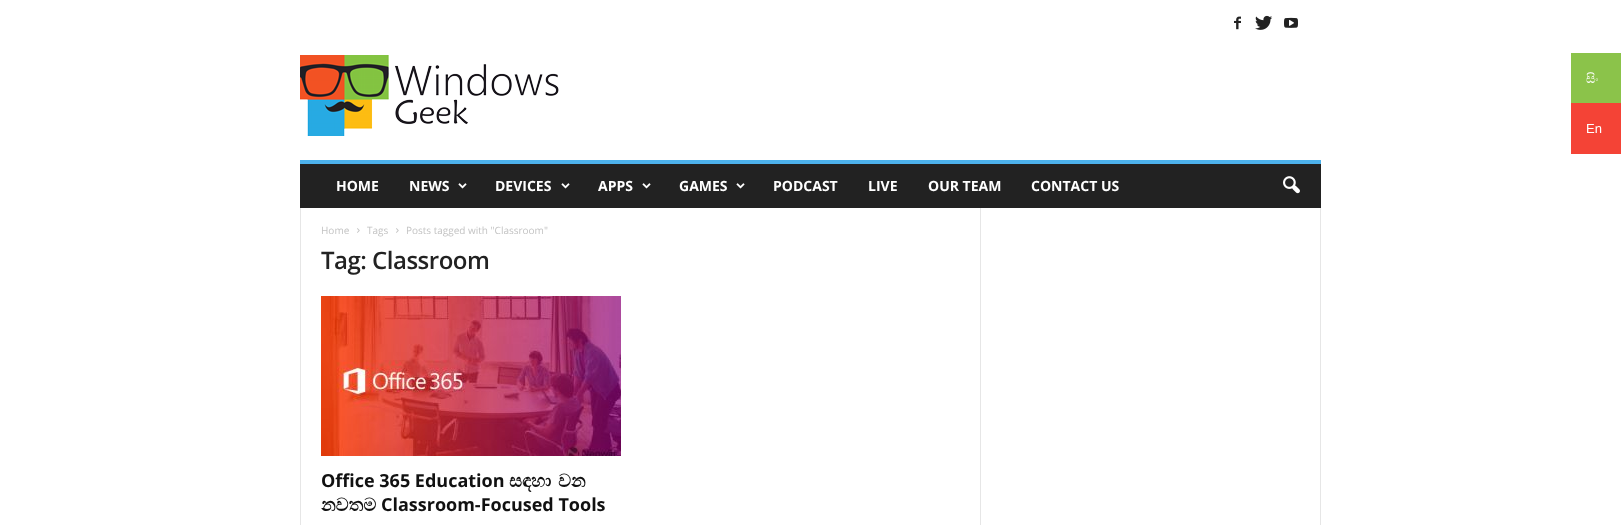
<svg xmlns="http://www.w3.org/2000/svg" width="1621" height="525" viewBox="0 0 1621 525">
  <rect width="100%" height="100%" fill="#ffffff"/>
  <rect x="1571" y="53" width="50" height="50" fill="#8bc34a"/>
  <text x="1586" y="83" font-family="FreeSerif" font-size="13" fill="#ffffff">සිං</text>
  <rect x="1571" y="103" width="50" height="51" fill="#f44336"/>
  <text x="1586" y="133" font-family="Liberation Sans" font-size="13" fill="#ffffff">En</text>
  <image x="1234" y="16" width="7" height="14" href="img1.png"/>
  <image x="1255" y="15" width="18" height="15" href="img2.png"/>
  <image x="1284" y="17" width="14" height="11" href="img3.png"/>
  <image x="300" y="55" width="259" height="81" href="img4.png"/>
  <rect x="300" y="164" width="1021" height="44" fill="#222222"/>
  <rect x="300" y="160" width="1021" height="4" fill="#4db2ec"/>
  <text x="336" y="191" font-family="Open Sans" font-size="14" font-weight="bold" fill="#ffffff">HOME</text>
  <text x="409" y="191" font-family="Open Sans" font-size="14" font-weight="bold" fill="#ffffff">NEWS</text>
  <image x="458" y="183" width="9" height="6" href="img5.png"/>
  <text x="495" y="191" font-family="Open Sans" font-size="14" font-weight="bold" fill="#ffffff">DEVICES</text>
  <image x="561" y="183" width="9" height="6" href="img5.png"/>
  <text x="598" y="191" font-family="Open Sans" font-size="14" font-weight="bold" fill="#ffffff">APPS</text>
  <image x="642" y="183" width="9" height="6" href="img5.png"/>
  <text x="679" y="191" font-family="Open Sans" font-size="14" font-weight="bold" fill="#ffffff">GAMES</text>
  <image x="736" y="183" width="9" height="6" href="img5.png"/>
  <text x="773" y="191" font-family="Open Sans" font-size="14" font-weight="bold" fill="#ffffff">PODCAST</text>
  <text x="868" y="191" font-family="Open Sans" font-size="14" font-weight="bold" fill="#ffffff">LIVE</text>
  <text x="928" y="191" font-family="Open Sans" font-size="14" font-weight="bold" fill="#ffffff">OUR TEAM</text>
  <text x="1031" y="191" font-family="Open Sans" font-size="14" font-weight="bold" fill="#ffffff">CONTACT US</text>
  <image x="1283" y="176" width="17" height="18" href="img6.png"/>
  <rect x="300" y="208" width="1" height="317" fill="#e6e6e6"/>
  <text x="321" y="234" font-family="Open Sans" font-size="10" fill="#c3c3c3">Home</text>
  <image x="357" y="228" width="3" height="5" href="img7.png"/>
  <text x="367" y="234" font-family="Open Sans" font-size="10" fill="#c3c3c3">Tags</text>
  <image x="396" y="228" width="3" height="5" href="img7.png"/>
  <text x="406" y="234" font-family="Open Sans" font-size="10" fill="#c3c3c3">Posts tagged with "Classroom"</text>
  <text x="321" y="269" font-family="Open Sans" font-size="24" font-weight="600" letter-spacing="-0.5" fill="#222222">Tag: Classroom</text>
  <image x="321" y="296" width="300" height="160" href="img8.png"/>
  <text x="321" y="487" font-family="Open Sans" font-size="18" font-weight="bold" fill="#111111">Office 365 Education</text>
  <text x="509" y="487" font-family="FreeSerif" font-size="18" font-weight="bold" fill="#111111">සඳහා</text>
  <text x="558" y="487" font-family="FreeSerif" font-size="18" font-weight="bold" fill="#111111">වන</text>
  <text x="321" y="511" font-family="FreeSerif" font-size="18" font-weight="bold" fill="#111111">නවතම</text>
  <text x="381" y="511" font-family="Open Sans" font-size="18" font-weight="bold" fill="#111111">Classroom-Focused Tools</text>
  <rect x="980" y="208" width="1" height="317" fill="#e6e6e6"/>
  <rect x="1320" y="208" width="1" height="317" fill="#e6e6e6"/>
</svg>
